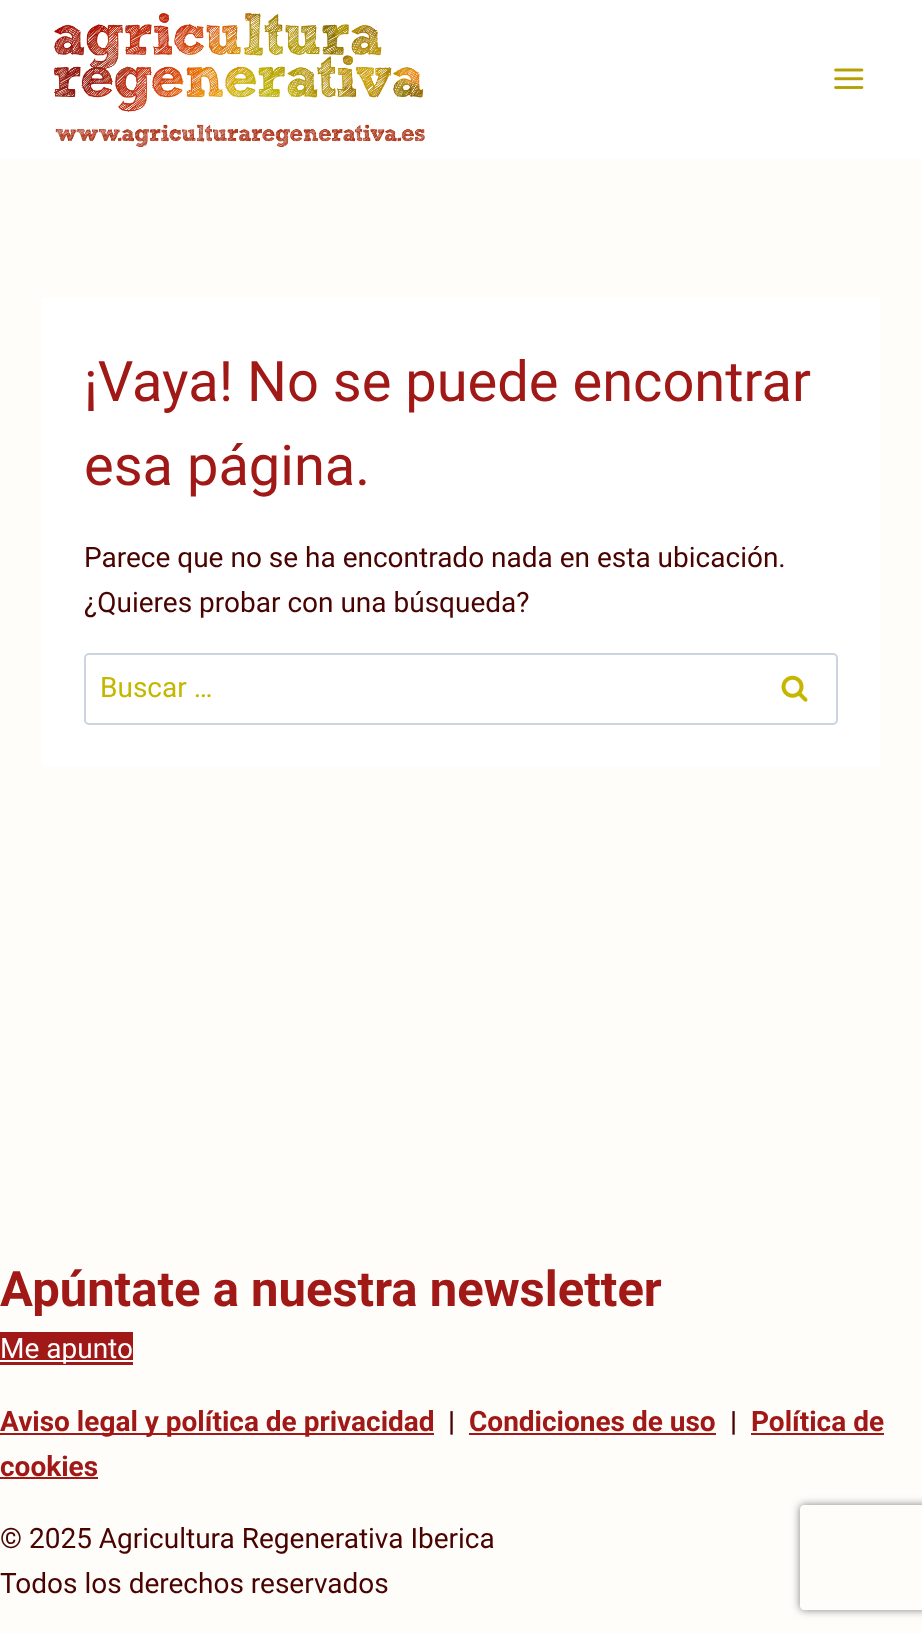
<svg xmlns="http://www.w3.org/2000/svg" width="922" height="1633" viewBox="0 0 922 1633">
  <defs>
    <clipPath id="clip1"><path d="M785 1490H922V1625H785ZM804 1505H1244C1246 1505 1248 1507 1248 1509V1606C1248 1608 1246 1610 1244 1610H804C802 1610 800 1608 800 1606V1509C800 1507 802 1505 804 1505Z" clip-rule="evenodd"/></clipPath>
    <filter id="blur1" x="-50%" y="-200%" width="200%" height="500%"><feGaussianBlur stdDeviation="4.5"/></filter>
  </defs>
  <rect width="100%" height="100%" fill="#fffdfa"/>
  <rect x="0" y="0" width="922" height="158" fill="#ffffff"/>
  <image x="54" y="13" width="371" height="134" href="img1.png"/>
  <image x="834" y="68" width="30" height="21" href="img2.png"/>
  <rect x="42" y="298" width="838" height="469" fill="#ffffff"/>
  <text x="84" y="401" font-family="Roboto" font-size="56" fill="#a11917">¡Vaya! No se puede encontrar</text>
  <text x="84" y="485" font-family="Roboto" font-size="56" fill="#a11917">esa página.</text>
  <text x="84" y="567" font-family="Roboto" font-size="28" fill="#490301">Parece que no se ha encontrado nada en esta ubicación.</text>
  <text x="84" y="612" font-family="Roboto" font-size="28" fill="#490301">¿Quieres probar con una búsqueda?</text>
  <rect x="85" y="654" width="752" height="70" rx="4" fill="none" stroke="#cbd5e0" stroke-width="2"/>
  <text x="100" y="697" font-family="Roboto" font-size="28" fill="#c5b700">Buscar …</text>
  <image x="781" y="675" width="27" height="27" href="img3.png"/>
  <text x="0" y="1306" font-family="Roboto" font-size="49" font-weight="bold" fill="#a11917">Apúntate a nuestra newsletter</text>
  <rect x="0" y="1332" width="133" height="33" fill="#a11917"/>
  <rect x="0" y="1360" width="133" height="2" fill="#ffffff"/>
  <text x="0" y="1358" font-family="Roboto" font-size="28" fill="#ffffff">Me apunto</text>
  <rect x="0" y="1433" width="434" height="2" fill="#a11917"/>
  <text x="0" y="1431" font-family="Roboto" font-size="28" font-weight="bold" fill="#a11917">Aviso legal y política de privacidad</text>
  <text x="448" y="1431" font-family="Roboto" font-size="28" font-weight="bold" fill="#490301">|</text>
  <text x="469" y="1431" font-family="Roboto" font-size="28" font-weight="bold" fill="#a11917">Condiciones de uso</text>
  <rect x="469" y="1433" width="247" height="2" fill="#a11917"/>
  <text x="730" y="1431" font-family="Roboto" font-size="28" font-weight="bold" fill="#490301">|</text>
  <text x="751" y="1431" font-family="Roboto" font-size="28" font-weight="bold" fill="#a11917">Política de</text>
  <rect x="751" y="1433" width="133" height="2" fill="#a11917"/>
  <text x="0" y="1476" font-family="Roboto" font-size="28" font-weight="bold" fill="#a11917">cookies</text>
  <rect x="0" y="1477" width="98" height="2" fill="#a11917"/>
  <text x="0" y="1548" font-family="Roboto" font-size="28" fill="#490301">© 2025 Agricultura Regenerativa Iberica</text>
  <text x="0" y="1593" font-family="Roboto" font-size="28" fill="#490301">Todos los derechos reservados</text>
  <g clip-path="url(#clip1)">
    <rect x="800" y="1505" width="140" height="105" rx="4" fill="#808080" filter="url(#blur1)"/>
  </g>
</svg>
